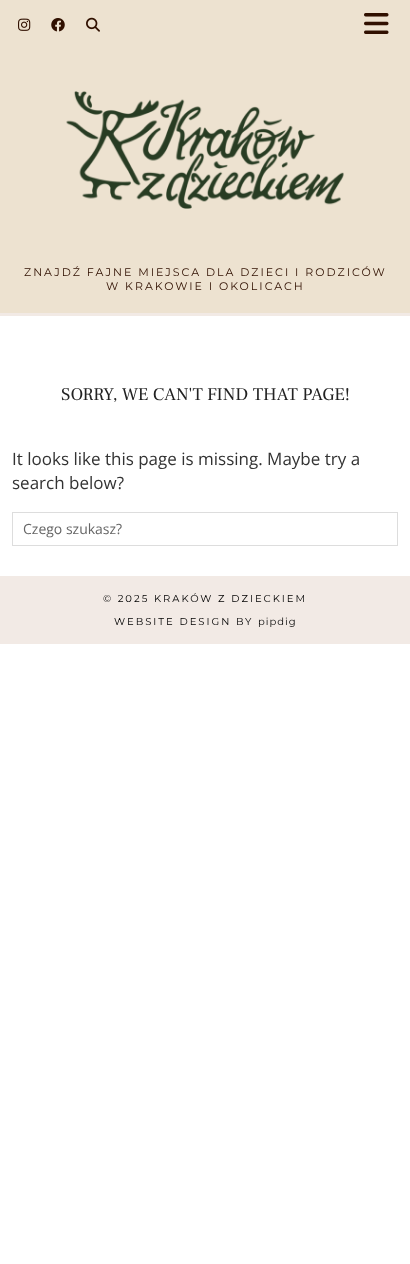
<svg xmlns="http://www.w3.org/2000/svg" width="410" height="1264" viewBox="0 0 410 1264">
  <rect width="100%" height="100%" fill="#ffffff"/>
  <rect x="0" y="0" width="410" height="313" fill="#ede2d0"/>
  <image x="18" y="18" width="13" height="13" href="img1.png"/>
  <image x="51" y="18" width="14" height="14" href="img2.png"/>
  <image x="86" y="17" width="14" height="15" href="img3.png"/>
  <image x="364" y="13" width="25" height="21" href="img4.png"/>
  <rect x="0" y="313" width="410" height="3" fill="#f2eae5"/>
  <image x="66" y="91" width="278" height="118" href="img5.png"/>
  <text x="24" y="276" font-family="Montserrat" font-size="11" font-weight="100" letter-spacing="2" fill="#301000">ZNAJDŹ FAJNE MIEJSCA DLA DZIECI I RODZICÓW</text>
  <text x="106" y="290" font-family="Montserrat" font-size="11" font-weight="100" letter-spacing="2" fill="#301000">W KRAKOWIE I OKOLICACH</text>
  <text x="61" y="400" font-family="Frank Ruhl Libre" font-size="18" fill="#222222">SORRY, WE CAN'T FIND THAT PAGE!</text>
  <text x="12" y="465" font-family="Open Sans" font-size="17" fill="#333333">It looks like this page is missing. Maybe try a</text>
  <text x="12" y="489" font-family="Open Sans" font-size="17" fill="#333333">search below?</text>
  <rect x="12.5" y="512.5" width="385" height="33" fill="none" stroke="#dddddd"/>
  <text x="23" y="534" font-family="Open Sans" font-size="14" fill="#666666">Czego szukasz?</text>
  <rect x="0" y="576" width="410" height="68" fill="#f2eae5"/>
  <text x="103" y="602" font-family="Montserrat" font-size="10" font-weight="100" letter-spacing="2" fill="#000000">© 2025 KRAKÓW Z DZIECKIEM</text>
  <text x="114" y="625" font-family="Montserrat" font-size="10" font-weight="100" letter-spacing="2" fill="#000000">WEBSITE DESIGN BY</text>
  <text x="258" y="625" font-family="Montserrat" font-size="10" font-weight="100" letter-spacing="1" fill="#000000">pipdig</text>
</svg>
